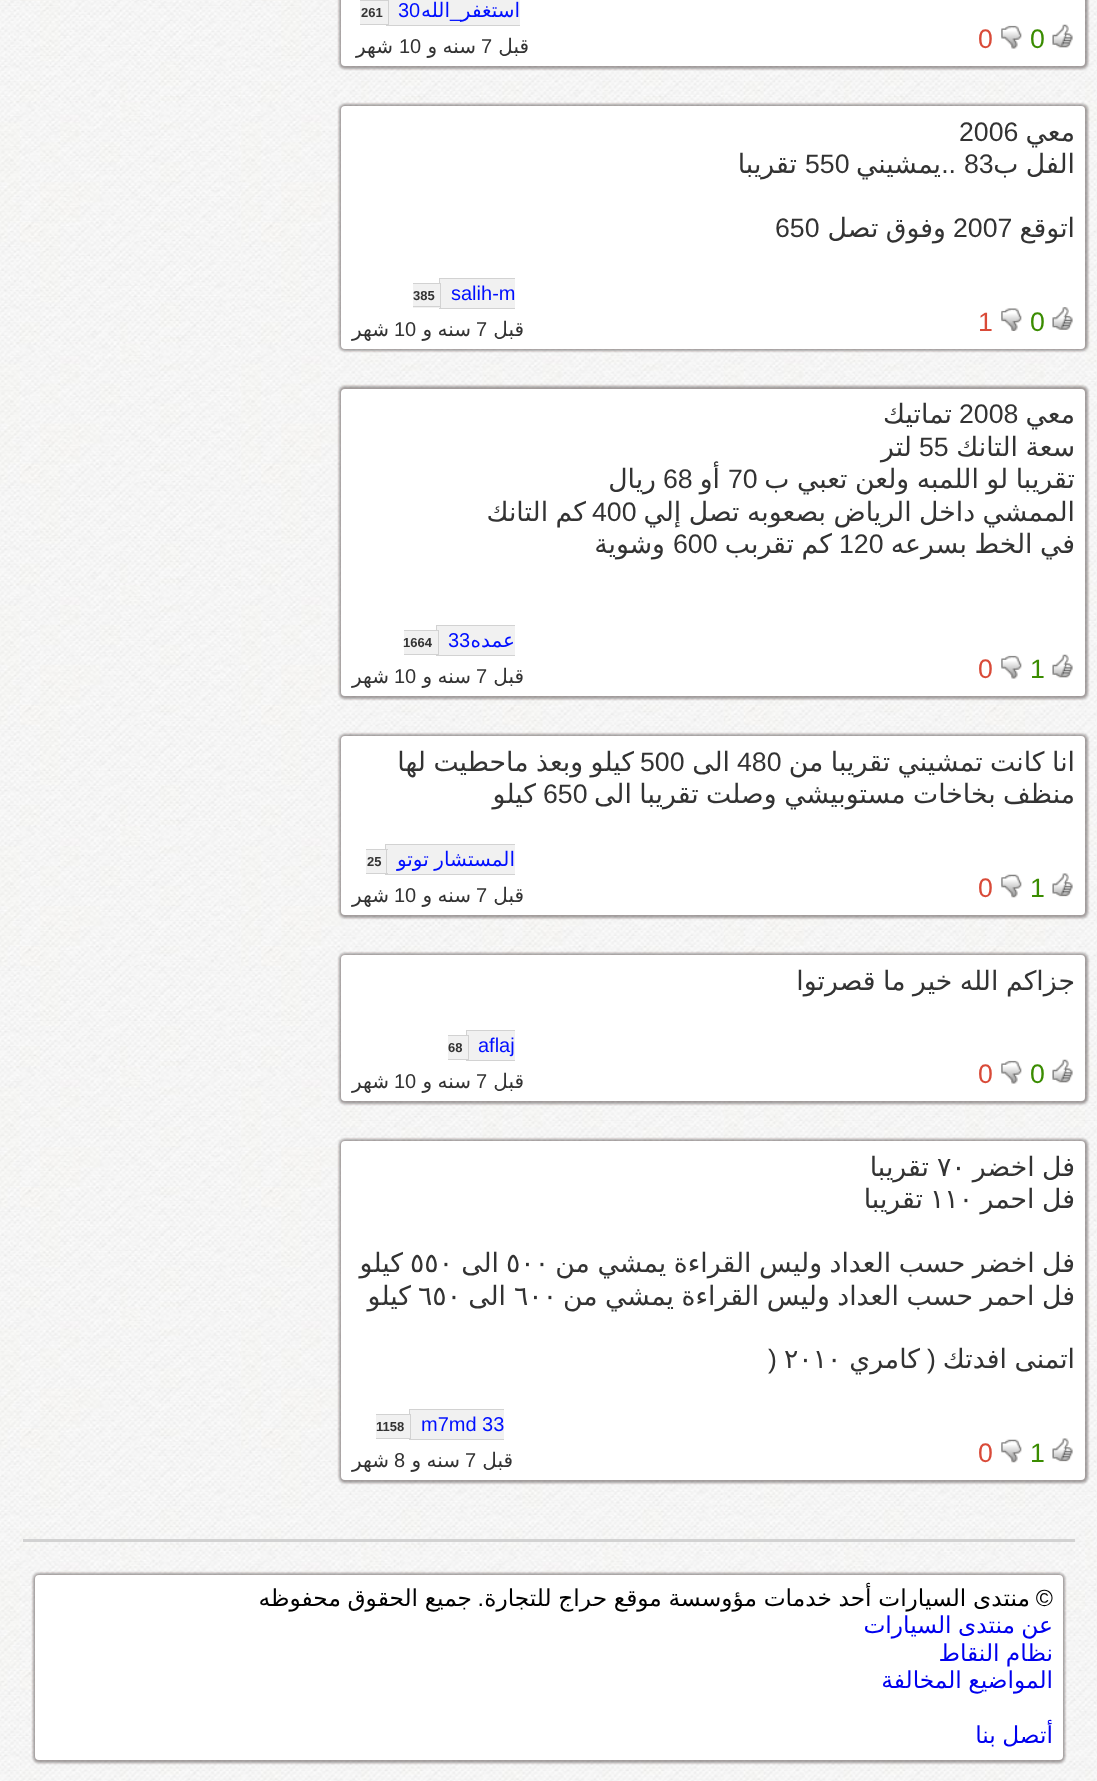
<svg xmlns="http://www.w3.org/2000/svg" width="1097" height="1781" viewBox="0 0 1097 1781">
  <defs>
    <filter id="blur1" x="-50%" y="-200%" width="200%" height="500%"><feGaussianBlur stdDeviation="1"/></filter>
  </defs>
  <rect width="100%" height="100%" fill="#ffffff"/>
  <image x="0" y="0" width="1097" height="1781" href="img1.png"/>
  <rect x="339" y="-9" width="749" height="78" rx="6" fill="#221919" fill-opacity="0.4" filter="url(#blur1)"/>
  <rect x="341" y="-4" width="744" height="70" rx="4" fill="#ffffff"/>
  <image x="1052" y="24" width="21" height="24" href="img2.png"/>
  <text x="1030" y="48" font-family="Liberation Sans" font-size="26.7" fill="#3a8c00">0</text>
  <image x="1001" y="25" width="21" height="24" href="img3.png"/>
  <text x="978" y="48" font-family="Liberation Sans" font-size="26.7" fill="#d94a38">0</text>
  <rect x="389" y="0" width="131" height="25" fill="#f1f1f1"/>
  <text x="461" y="17" font-family="Liberation Sans" font-size="20" direction="rtl" fill="#000fff">_</text>
  <text x="520" y="17" font-family="DejaVu Sans" font-size="20" direction="rtl" fill="#000fff">استغفر</text>
  <text x="450" y="17" font-family="DejaVu Sans" font-size="20" direction="rtl" fill="#000fff">الله</text>
  <text x="398" y="17" font-family="Liberation Sans" font-size="20" fill="#000fff">30</text>
  <rect x="360" y="1" width="28" height="23" fill="#f1f1f1"/>
  <text x="361" y="17" font-family="Liberation Sans" font-size="13" font-weight="bold" fill="#333333">261</text>
  <rect x="360" y="0" width="29" height="1" fill="#d2d2d2"/>
  <rect x="388" y="0" width="1" height="25" fill="#d2d2d2"/>
  <rect x="360" y="24" width="29" height="1" fill="#d2d2d2"/>
  <rect x="386" y="25" width="134" height="1" fill="#d2d2d2"/>
  <text x="529" y="53" font-family="DejaVu Sans" font-size="20" direction="rtl" fill="#333333">قبل</text>
  <text x="481" y="53" font-family="Liberation Sans" font-size="20" fill="#333333">7</text>
  <text x="476" y="53" word-spacing="-1" font-family="DejaVu Sans" font-size="20" direction="rtl" fill="#333333">سنه و</text>
  <text x="399" y="53" font-family="Liberation Sans" font-size="20" fill="#333333">10</text>
  <text x="393" y="53" font-family="DejaVu Sans" font-size="20" direction="rtl" fill="#333333">شهر</text>
  <rect x="339" y="104" width="749" height="247" rx="6" fill="#221919" fill-opacity="0.4" filter="url(#blur1)"/>
  <rect x="341" y="106" width="744" height="243" rx="4" fill="#ffffff"/>
  <text x="1075" y="141" font-family="DejaVu Sans" font-size="26.7" direction="rtl" fill="#333333">معي</text>
  <text x="959" y="141" font-family="Liberation Sans" font-size="26.7" fill="#333333">2006</text>
  <text x="1075" y="173" word-spacing="-1" font-family="DejaVu Sans" font-size="26.7" direction="rtl" fill="#333333">الفل ب</text>
  <text x="964" y="173" font-family="Liberation Sans" font-size="26.7" fill="#333333">83</text>
  <text x="956" y="173" font-family="Liberation Sans" font-size="26.7" direction="rtl" fill="#333333">..</text>
  <text x="941" y="173" font-family="DejaVu Sans" font-size="26.7" direction="rtl" fill="#333333">يمشيني</text>
  <text x="805" y="173" font-family="Liberation Sans" font-size="26.7" fill="#333333">550</text>
  <text x="797" y="173" font-family="DejaVu Sans" font-size="26.7" direction="rtl" fill="#333333">تقريبا</text>
  <text x="1075" y="237" font-family="DejaVu Sans" font-size="26.7" direction="rtl" fill="#333333">اتوقع</text>
  <text x="953" y="237" font-family="Liberation Sans" font-size="26.7" fill="#333333">2007</text>
  <text x="946" y="237" word-spacing="-1" font-family="DejaVu Sans" font-size="26.7" direction="rtl" fill="#333333">وفوق تصل</text>
  <text x="775" y="237" font-family="Liberation Sans" font-size="26.7" fill="#333333">650</text>
  <image x="1052" y="307" width="21" height="23" href="img4.png"/>
  <text x="1030" y="331" font-family="Liberation Sans" font-size="26.7" fill="#3a8c00">0</text>
  <image x="1001" y="308" width="21" height="23" href="img5.png"/>
  <text x="978" y="331" font-family="Liberation Sans" font-size="26.7" fill="#d94a38">1</text>
  <rect x="440" y="279" width="75" height="29" fill="#f1f1f1"/>
  <text x="451" y="300" font-family="Liberation Sans" font-size="20" fill="#000fff">salih-m</text>
  <rect x="439" y="278" width="76" height="1" fill="#d2d2d2"/>
  <rect x="439" y="308" width="76" height="1" fill="#d2d2d2"/>
  <rect x="439" y="278" width="1" height="31" fill="#d2d2d2"/>
  <rect x="413" y="284" width="27" height="24" fill="#f1f1f1"/>
  <text x="413" y="300" font-family="Liberation Sans" font-size="13" font-weight="bold" fill="#333333">385</text>
  <rect x="413" y="283" width="28" height="1" fill="#d2d2d2"/>
  <rect x="440" y="283" width="1" height="25" fill="#d2d2d2"/>
  <rect x="413" y="306" width="28" height="1" fill="#d2d2d2"/>
  <text x="524" y="336" font-family="DejaVu Sans" font-size="20" direction="rtl" fill="#333333">قبل</text>
  <text x="476" y="336" font-family="Liberation Sans" font-size="20" fill="#333333">7</text>
  <text x="471" y="336" word-spacing="-1" font-family="DejaVu Sans" font-size="20" direction="rtl" fill="#333333">سنه و</text>
  <text x="394" y="336" font-family="Liberation Sans" font-size="20" fill="#333333">10</text>
  <text x="389" y="336" font-family="DejaVu Sans" font-size="20" direction="rtl" fill="#333333">شهر</text>
  <rect x="339" y="386" width="749" height="313" rx="6" fill="#221919" fill-opacity="0.4" filter="url(#blur1)"/>
  <rect x="341" y="389" width="744" height="307" rx="4" fill="#ffffff"/>
  <text x="1075" y="423" font-family="DejaVu Sans" font-size="26.7" direction="rtl" fill="#333333">معي</text>
  <text x="959" y="423" font-family="Liberation Sans" font-size="26.7" fill="#333333">2008</text>
  <text x="952" y="423" font-family="DejaVu Sans" font-size="26.7" direction="rtl" fill="#333333">تماتيك</text>
  <text x="1075" y="456" word-spacing="-1" font-family="DejaVu Sans" font-size="26.7" direction="rtl" fill="#333333">سعة التانك</text>
  <text x="919" y="456" font-family="Liberation Sans" font-size="26.7" fill="#333333">55</text>
  <text x="912" y="456" font-family="DejaVu Sans" font-size="26.7" direction="rtl" fill="#333333">لتر</text>
  <text x="1075" y="488" word-spacing="-1" font-family="DejaVu Sans" font-size="26.7" direction="rtl" fill="#333333">تقريبا لو اللمبه ولعن تعبي ب</text>
  <text x="728" y="488" font-family="Liberation Sans" font-size="26.7" fill="#333333">70</text>
  <text x="720" y="488" font-family="DejaVu Sans" font-size="26.7" direction="rtl" fill="#333333">أو</text>
  <text x="663" y="488" font-family="Liberation Sans" font-size="26.7" fill="#333333">68</text>
  <text x="656" y="488" font-family="DejaVu Sans" font-size="26.7" direction="rtl" fill="#333333">ريال</text>
  <text x="1075" y="521" word-spacing="-1" font-family="DejaVu Sans" font-size="26.7" direction="rtl" fill="#333333">الممشي داخل الرياض بصعوبه تصل إلي</text>
  <text x="592" y="521" font-family="Liberation Sans" font-size="26.7" fill="#333333">400</text>
  <text x="586" y="521" word-spacing="-1" font-family="DejaVu Sans" font-size="26.7" direction="rtl" fill="#333333">كم التانك</text>
  <text x="1075" y="553" word-spacing="-1" font-family="DejaVu Sans" font-size="26.7" direction="rtl" fill="#333333">في الخط بسرعه</text>
  <text x="839" y="553" font-family="Liberation Sans" font-size="26.7" fill="#333333">120</text>
  <text x="832" y="553" word-spacing="-1" font-family="DejaVu Sans" font-size="26.7" direction="rtl" fill="#333333">كم تقربب</text>
  <text x="673" y="553" font-family="Liberation Sans" font-size="26.7" fill="#333333">600</text>
  <text x="665" y="553" font-family="DejaVu Sans" font-size="26.7" direction="rtl" fill="#333333">وشوية</text>
  <image x="1052" y="654" width="21" height="24" href="img2.png"/>
  <text x="1030" y="678" font-family="Liberation Sans" font-size="26.7" fill="#3a8c00">1</text>
  <image x="1001" y="655" width="21" height="24" href="img3.png"/>
  <text x="978" y="678" font-family="Liberation Sans" font-size="26.7" fill="#d94a38">0</text>
  <rect x="437" y="626" width="78" height="29" fill="#f1f1f1"/>
  <text x="515" y="647" font-family="DejaVu Sans" font-size="20" direction="rtl" fill="#000fff">عمده</text>
  <rect x="436" y="655" width="79" height="1" fill="#d2d2d2"/>
  <text x="448" y="647" font-family="Liberation Sans" font-size="20" fill="#000fff">33</text>
  <rect x="436" y="625" width="79" height="1" fill="#d2d2d2"/>
  <rect x="436" y="625" width="1" height="31" fill="#d2d2d2"/>
  <rect x="404" y="631" width="33" height="23" fill="#f1f1f1"/>
  <text x="403" y="647" font-family="Liberation Sans" font-size="13" font-weight="bold" fill="#333333">1664</text>
  <rect x="404" y="630" width="35" height="1" fill="#d2d2d2"/>
  <rect x="438" y="630" width="1" height="25" fill="#d2d2d2"/>
  <rect x="404" y="654" width="35" height="1" fill="#d2d2d2"/>
  <text x="524" y="683" font-family="DejaVu Sans" font-size="20" direction="rtl" fill="#333333">قبل</text>
  <text x="476" y="683" font-family="Liberation Sans" font-size="20" fill="#333333">7</text>
  <text x="471" y="683" word-spacing="-1" font-family="DejaVu Sans" font-size="20" direction="rtl" fill="#333333">سنه و</text>
  <text x="394" y="683" font-family="Liberation Sans" font-size="20" fill="#333333">10</text>
  <text x="389" y="683" font-family="DejaVu Sans" font-size="20" direction="rtl" fill="#333333">شهر</text>
  <rect x="339" y="734" width="749" height="184" rx="6" fill="#221919" fill-opacity="0.4" filter="url(#blur1)"/>
  <rect x="341" y="736" width="744" height="179" rx="4" fill="#ffffff"/>
  <text x="1075" y="771" word-spacing="-1" font-family="DejaVu Sans" font-size="26.7" direction="rtl" fill="#333333">انا كانت تمشيني تقريبا من</text>
  <text x="737" y="771" font-family="Liberation Sans" font-size="26.7" fill="#333333">480</text>
  <text x="730" y="771" font-family="DejaVu Sans" font-size="26.7" direction="rtl" fill="#333333">الى</text>
  <text x="640" y="771" font-family="Liberation Sans" font-size="26.7" fill="#333333">500</text>
  <text x="634" y="771" word-spacing="-1" font-family="DejaVu Sans" font-size="26.7" direction="rtl" fill="#333333">كيلو وبعذ ماحطيت لها</text>
  <text x="1075" y="803" word-spacing="-1" font-family="DejaVu Sans" font-size="26.7" direction="rtl" fill="#333333">منظف بخاخات مستوبيشي وصلت تقريبا الى</text>
  <text x="543" y="803" font-family="Liberation Sans" font-size="26.7" fill="#333333">650</text>
  <text x="536" y="803" font-family="DejaVu Sans" font-size="26.7" direction="rtl" fill="#333333">كيلو</text>
  <image x="1052" y="873" width="21" height="24" href="img6.png"/>
  <text x="1030" y="897" font-family="Liberation Sans" font-size="26.7" fill="#3a8c00">1</text>
  <image x="1001" y="874" width="21" height="24" href="img7.png"/>
  <text x="978" y="897" font-family="Liberation Sans" font-size="26.7" fill="#d94a38">0</text>
  <rect x="386" y="845" width="129" height="29" fill="#f1f1f1"/>
  <text x="515" y="866" word-spacing="-0.75" font-family="DejaVu Sans" font-size="20" direction="rtl" fill="#000fff">المستشار توتو</text>
  <rect x="385" y="844" width="130" height="1" fill="#d2d2d2"/>
  <rect x="385" y="874" width="130" height="1" fill="#d2d2d2"/>
  <rect x="385" y="844" width="1" height="31" fill="#d2d2d2"/>
  <rect x="366" y="850" width="20" height="23" fill="#f1f1f1"/>
  <text x="367" y="866" font-family="Liberation Sans" font-size="13" font-weight="bold" fill="#333333">25</text>
  <rect x="366" y="849" width="22" height="1" fill="#d2d2d2"/>
  <rect x="386" y="849" width="1" height="25" fill="#d2d2d2"/>
  <rect x="366" y="873" width="22" height="1" fill="#d2d2d2"/>
  <text x="524" y="902" font-family="DejaVu Sans" font-size="20" direction="rtl" fill="#333333">قبل</text>
  <text x="476" y="902" font-family="Liberation Sans" font-size="20" fill="#333333">7</text>
  <text x="471" y="902" word-spacing="-1" font-family="DejaVu Sans" font-size="20" direction="rtl" fill="#333333">سنه و</text>
  <text x="394" y="902" font-family="Liberation Sans" font-size="20" fill="#333333">10</text>
  <text x="389" y="902" font-family="DejaVu Sans" font-size="20" direction="rtl" fill="#333333">شهر</text>
  <rect x="339" y="953" width="749" height="151" rx="6" fill="#221919" fill-opacity="0.4" filter="url(#blur1)"/>
  <rect x="341" y="955" width="744" height="146" rx="4" fill="#ffffff"/>
  <text x="1075" y="990" word-spacing="-1" font-family="DejaVu Sans" font-size="26.7" direction="rtl" fill="#333333">جزاكم الله خير ما قصرتوا</text>
  <image x="1052" y="1059" width="21" height="24" href="img2.png"/>
  <text x="1030" y="1083" font-family="Liberation Sans" font-size="26.7" fill="#3a8c00">0</text>
  <image x="1001" y="1060" width="21" height="24" href="img3.png"/>
  <text x="978" y="1083" font-family="Liberation Sans" font-size="26.7" fill="#d94a38">0</text>
  <rect x="467" y="1031" width="48" height="29" fill="#f1f1f1"/>
  <text x="478" y="1052" font-family="Liberation Sans" font-size="20" fill="#000fff">aflaj</text>
  <rect x="466" y="1030" width="49" height="1" fill="#d2d2d2"/>
  <rect x="466" y="1060" width="49" height="1" fill="#d2d2d2"/>
  <rect x="466" y="1030" width="1" height="31" fill="#d2d2d2"/>
  <rect x="448" y="1036" width="19" height="23" fill="#f1f1f1"/>
  <text x="448" y="1052" font-family="Liberation Sans" font-size="13" font-weight="bold" fill="#333333">68</text>
  <rect x="448" y="1035" width="21" height="1" fill="#d2d2d2"/>
  <rect x="468" y="1035" width="1" height="25" fill="#d2d2d2"/>
  <rect x="448" y="1059" width="21" height="1" fill="#d2d2d2"/>
  <text x="524" y="1088" font-family="DejaVu Sans" font-size="20" direction="rtl" fill="#333333">قبل</text>
  <text x="476" y="1088" font-family="Liberation Sans" font-size="20" fill="#333333">7</text>
  <text x="471" y="1088" word-spacing="-1" font-family="DejaVu Sans" font-size="20" direction="rtl" fill="#333333">سنه و</text>
  <text x="394" y="1088" font-family="Liberation Sans" font-size="20" fill="#333333">10</text>
  <text x="389" y="1088" font-family="DejaVu Sans" font-size="20" direction="rtl" fill="#333333">شهر</text>
  <rect x="339" y="1139" width="749" height="344" rx="6" fill="#221919" fill-opacity="0.4" filter="url(#blur1)"/>
  <rect x="341" y="1141" width="744" height="339" rx="4" fill="#ffffff"/>
  <text x="1075" y="1176" word-spacing="-1" font-family="DejaVu Sans" font-size="26.7" direction="rtl" fill="#333333">فل اخضر</text>
  <text x="937" y="1176" font-family="DejaVu Sans" font-size="26.7" fill="#333333">٧٠</text>
  <text x="929" y="1176" font-family="DejaVu Sans" font-size="26.7" direction="rtl" fill="#333333">تقريبا</text>
  <text x="1075" y="1208" word-spacing="-1" font-family="DejaVu Sans" font-size="26.7" direction="rtl" fill="#333333">فل احمر</text>
  <text x="930" y="1208" font-family="DejaVu Sans" font-size="26.7" fill="#333333">١١٠</text>
  <text x="923" y="1208" font-family="DejaVu Sans" font-size="26.7" direction="rtl" fill="#333333">تقريبا</text>
  <text x="1075" y="1272" word-spacing="-1" font-family="DejaVu Sans" font-size="26.7" direction="rtl" fill="#333333">فل اخضر حسب العداد وليس القراءة يمشي من</text>
  <text x="506" y="1272" font-family="DejaVu Sans" font-size="26.7" fill="#333333">٥٠٠</text>
  <text x="499" y="1272" font-family="DejaVu Sans" font-size="26.7" direction="rtl" fill="#333333">الى</text>
  <text x="410" y="1272" font-family="DejaVu Sans" font-size="26.7" fill="#333333">٥٥٠</text>
  <text x="403" y="1272" font-family="DejaVu Sans" font-size="26.7" direction="rtl" fill="#333333">كيلو</text>
  <text x="1075" y="1305" word-spacing="-1" font-family="DejaVu Sans" font-size="26.7" direction="rtl" fill="#333333">فل احمر حسب العداد وليس القراءة يمشي من</text>
  <text x="514" y="1305" font-family="DejaVu Sans" font-size="26.7" fill="#333333">٦٠٠</text>
  <text x="506" y="1305" font-family="DejaVu Sans" font-size="26.7" direction="rtl" fill="#333333">الى</text>
  <text x="418" y="1305" font-family="DejaVu Sans" font-size="26.7" fill="#333333">٦٥٠</text>
  <text x="411" y="1305" font-family="DejaVu Sans" font-size="26.7" direction="rtl" fill="#333333">كيلو</text>
  <text x="1075" y="1368" word-spacing="-1" font-family="DejaVu Sans" font-size="26.7" direction="rtl" fill="#333333">اتمنى افدتك</text>
  <text x="936" y="1368" font-family="Liberation Sans" font-size="26.7" direction="rtl" fill="#333333">(</text>
  <text x="920" y="1368" font-family="DejaVu Sans" font-size="26.7" direction="rtl" fill="#333333">كامري</text>
  <text x="784" y="1368" font-family="DejaVu Sans" font-size="26.7" fill="#333333">٢٠١٠</text>
  <text x="768" y="1368" font-family="Liberation Sans" font-size="26.7" fill="#333333">)</text>
  <image x="1052" y="1438" width="21" height="24" href="img6.png"/>
  <text x="1030" y="1462" font-family="Liberation Sans" font-size="26.7" fill="#3a8c00">1</text>
  <image x="1001" y="1439" width="21" height="24" href="img7.png"/>
  <text x="978" y="1462" font-family="Liberation Sans" font-size="26.7" fill="#d94a38">0</text>
  <rect x="410" y="1410" width="94" height="29" fill="#f1f1f1"/>
  <text x="421" y="1431" font-family="Liberation Sans" font-size="20" fill="#000fff">m7md 33</text>
  <rect x="409" y="1409" width="95" height="1" fill="#d2d2d2"/>
  <rect x="409" y="1439" width="95" height="1" fill="#d2d2d2"/>
  <rect x="409" y="1409" width="1" height="31" fill="#d2d2d2"/>
  <rect x="376" y="1415" width="34" height="23" fill="#f1f1f1"/>
  <text x="376" y="1431" font-family="Liberation Sans" font-size="13" font-weight="bold" fill="#333333">1158</text>
  <rect x="376" y="1414" width="35" height="1" fill="#d2d2d2"/>
  <rect x="410" y="1414" width="1" height="25" fill="#d2d2d2"/>
  <rect x="376" y="1438" width="35" height="1" fill="#d2d2d2"/>
  <text x="513" y="1467" font-family="DejaVu Sans" font-size="20" direction="rtl" fill="#333333">قبل</text>
  <text x="465" y="1467" font-family="Liberation Sans" font-size="20" fill="#333333">7</text>
  <text x="460" y="1467" word-spacing="-1" font-family="DejaVu Sans" font-size="20" direction="rtl" fill="#333333">سنه و</text>
  <text x="394" y="1467" font-family="Liberation Sans" font-size="20" fill="#333333">8</text>
  <text x="389" y="1467" font-family="DejaVu Sans" font-size="20" direction="rtl" fill="#333333">شهر</text>
  <rect x="23" y="1539" width="1052" height="3" fill="#d2d2d2"/>
  <rect x="33" y="1573" width="1032" height="190" rx="6" fill="#221919" fill-opacity="0.4" filter="url(#blur1)"/>
  <rect x="35" y="1575" width="1028" height="185" rx="4" fill="#ffffff"/>
  <text x="1053" y="1606" font-family="Liberation Sans" font-size="23.3" direction="rtl" fill="#000000">©</text>
  <text x="1030" y="1606" word-spacing="-0.75" font-family="DejaVu Sans" font-size="23.3" direction="rtl" fill="#000000">منتدى السيارات أحد خدمات مؤوسسة موقع حراج للتجارة</text>
  <text x="484" y="1606" font-family="Liberation Sans" font-size="23.3" direction="rtl" fill="#000000">.</text>
  <text x="472" y="1606" word-spacing="-0.75" font-family="DejaVu Sans" font-size="23.3" direction="rtl" fill="#000000">جميع الحقوق محفوظه</text>
  <text x="1053" y="1633" word-spacing="-1" font-family="DejaVu Sans" font-size="23.3" direction="rtl" fill="#0000ee">عن منتدى السيارات</text>
  <text x="1053" y="1661" word-spacing="-1" font-family="DejaVu Sans" font-size="23.3" direction="rtl" fill="#0000ee">نظام النقاط</text>
  <text x="1053" y="1688" word-spacing="-1" font-family="DejaVu Sans" font-size="23.3" direction="rtl" fill="#0000ee">المواضيع المخالفة</text>
  <text x="1053" y="1743" word-spacing="-1" font-family="DejaVu Sans" font-size="23.3" direction="rtl" fill="#0000ee">أتصل بنا</text>
</svg>
